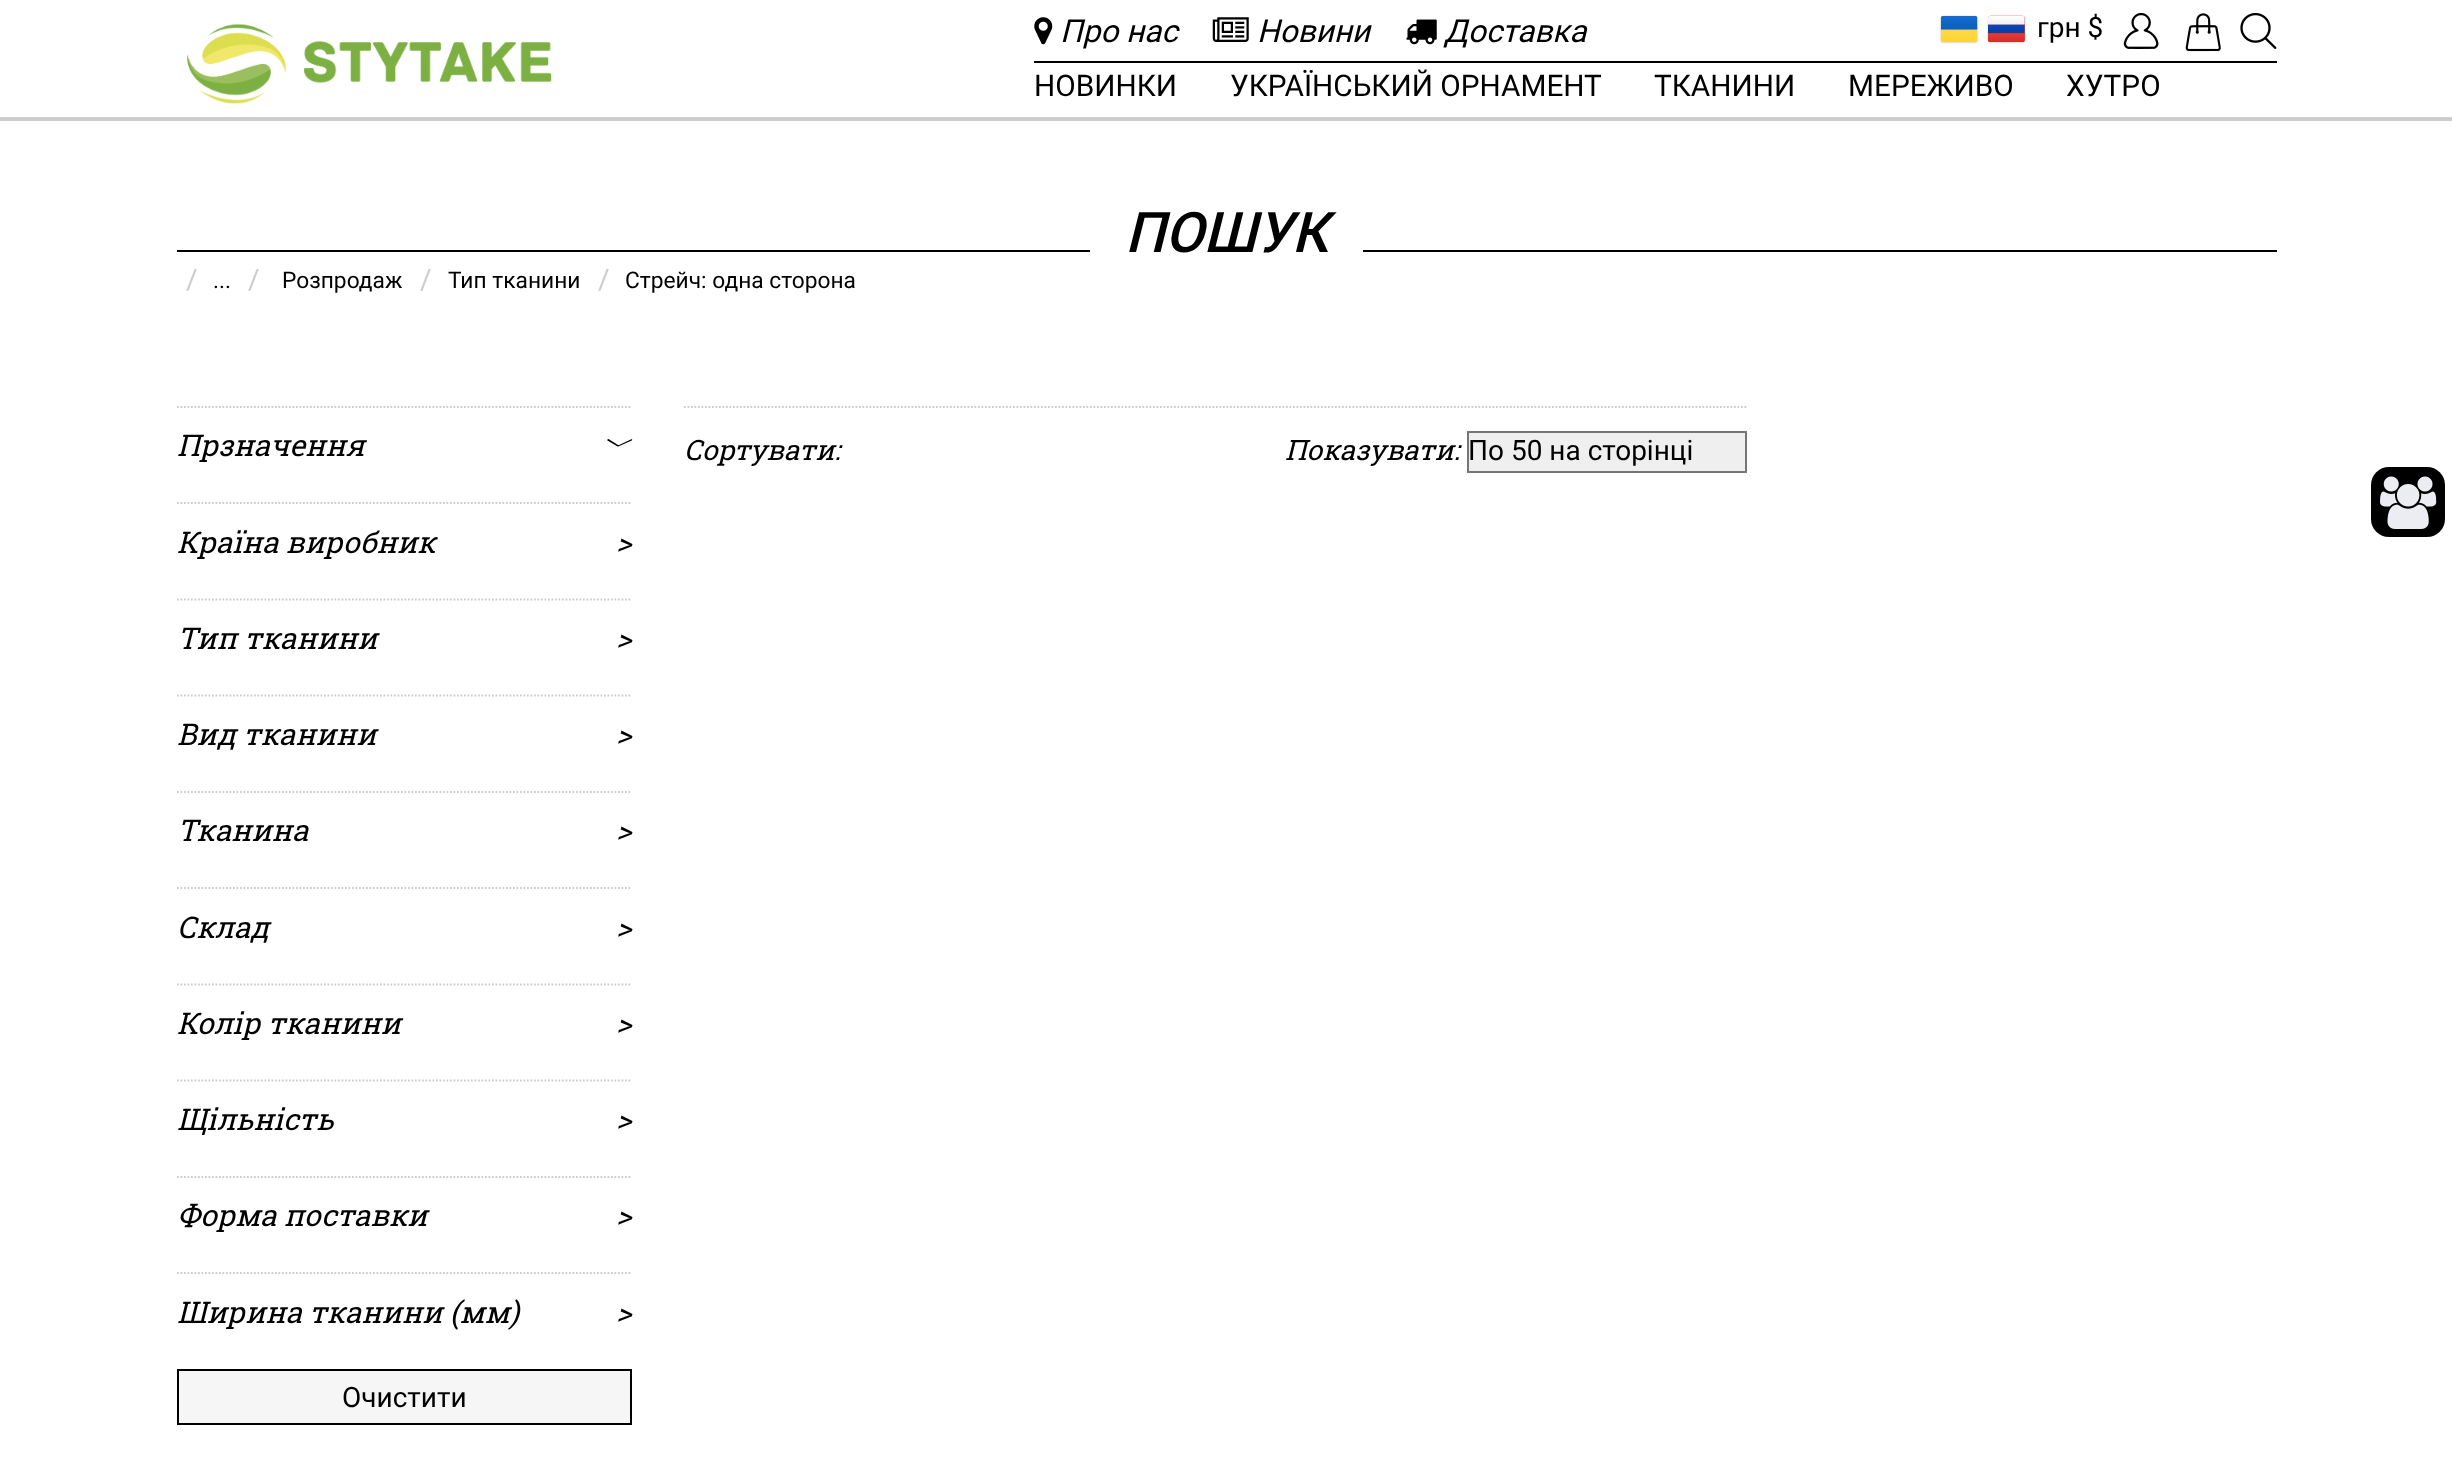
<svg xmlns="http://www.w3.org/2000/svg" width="2452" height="1458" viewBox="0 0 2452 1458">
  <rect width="100%" height="100%" fill="#ffffff"/>
  <rect x="0" y="117" width="2452" height="4" fill="#cccccc"/>
  <image x="187" y="24" width="365" height="80" href="img1.png"/>
  <rect x="1034" y="61" width="1243" height="2" fill="#000000"/>
  <image x="1034" y="17" width="19" height="28" href="img2.png"/>
  <text x="1060" y="42" font-family="Roboto" font-size="31.5" font-style="italic" fill="#000000">Про нас</text>
  <image x="1212" y="17" width="37" height="25" href="img3.png"/>
  <text x="1257" y="42" font-family="Roboto" font-size="31.5" font-style="italic" fill="#000000">Новини</text>
  <image x="1406" y="19" width="31" height="26" href="img4.png"/>
  <text x="1444" y="42" font-family="Roboto" font-size="31.5" font-style="italic" fill="#000000">Доставка</text>
  <image x="1939" y="15" width="40" height="29" href="img5.png"/>
  <image x="1987" y="15" width="39" height="29" href="img6.png"/>
  <text x="2037" y="37" font-family="Roboto" font-size="28" fill="#000000">грн $</text>
  <image x="2123" y="13" width="36" height="36" href="img7.png"/>
  <image x="2185" y="13" width="36" height="39" href="img8.png"/>
  <image x="2240" y="13" width="37" height="36" href="img9.png"/>
  <text x="1034" y="96" font-family="Roboto" font-size="29.75" fill="#000000">НОВИНКИ</text>
  <text x="1230" y="96" font-family="Roboto" font-size="29.75" fill="#000000">УКРАЇНСЬКИЙ ОРНАМЕНТ</text>
  <text x="1654" y="96" font-family="Roboto" font-size="29.75" fill="#000000">ТКАНИНИ</text>
  <text x="1848" y="96" font-family="Roboto" font-size="29.75" fill="#000000">МЕРЕЖИВО</text>
  <text x="2066" y="96" font-family="Roboto" font-size="29.75" fill="#000000">ХУТРО</text>
  <rect x="2371" y="467" width="74" height="70" rx="18" fill="#000000"/>
  <image x="2380" y="476" width="57" height="53" href="img10.png"/>
  <rect x="177" y="250" width="913" height="2" fill="#000000"/>
  <text x="1125" y="252" font-family="Roboto" font-size="56" font-weight="500" font-style="italic" fill="#000000">ПОШУК</text>
  <rect x="1363" y="250" width="914" height="2" fill="#000000"/>
  <text x="186" y="289" font-family="Roboto" font-size="28" fill="#cccccc">/</text>
  <text x="213" y="288" font-family="Roboto" font-size="22.75" fill="#000000">...</text>
  <text x="248" y="289" font-family="Roboto" font-size="28" fill="#cccccc">/</text>
  <text x="282" y="288" font-family="Roboto" font-size="22.75" fill="#000000">Розпродаж</text>
  <text x="420" y="289" font-family="Roboto" font-size="28" fill="#cccccc">/</text>
  <text x="448" y="288" font-family="Roboto" font-size="22.75" fill="#000000">Тип тканини</text>
  <text x="598" y="289" font-family="Roboto" font-size="28" fill="#cccccc">/</text>
  <text x="625" y="288" font-family="Roboto" font-size="22.75" fill="#000000">Стрейч: одна сторона</text>
  <path d="M177 407H632" fill="none" stroke="#cccccc" stroke-width="1.8" stroke-dasharray="1.75 1.75"/>
  <text x="177" y="456" font-family="Roboto Slab" font-size="29.75" font-style="italic" fill="#000000">Прзначення</text>
  <text x="602" y="456" font-family="WenQuanYi Zen Hei" font-size="29.75" font-weight="500" font-style="italic" fill="#000000">﹀</text>
  <path d="M177 503H632" fill="none" stroke="#cccccc" stroke-width="1.8" stroke-dasharray="1.75 1.75"/>
  <text x="177" y="553" font-family="Roboto Slab" font-size="29.75" font-style="italic" fill="#000000">Країна виробник</text>
  <text x="616" y="553" font-family="Roboto Slab" font-size="29.75" font-style="italic" fill="#000000">&gt;</text>
  <path d="M177 599.5H632" fill="none" stroke="#cccccc" stroke-width="1.8" stroke-dasharray="1.75 1.75"/>
  <text x="177" y="649" font-family="Roboto Slab" font-size="29.75" font-style="italic" fill="#000000">Тип тканини</text>
  <text x="616" y="649" font-family="Roboto Slab" font-size="29.75" font-style="italic" fill="#000000">&gt;</text>
  <path d="M177 695.5H632" fill="none" stroke="#cccccc" stroke-width="1.8" stroke-dasharray="1.75 1.75"/>
  <text x="177" y="745" font-family="Roboto Slab" font-size="29.75" font-style="italic" fill="#000000">Вид тканини</text>
  <text x="616" y="745" font-family="Roboto Slab" font-size="29.75" font-style="italic" fill="#000000">&gt;</text>
  <path d="M177 792H632" fill="none" stroke="#cccccc" stroke-width="1.8" stroke-dasharray="1.75 1.75"/>
  <text x="177" y="841" font-family="Roboto Slab" font-size="29.75" font-style="italic" fill="#000000">Тканина</text>
  <text x="616" y="841" font-family="Roboto Slab" font-size="29.75" font-style="italic" fill="#000000">&gt;</text>
  <path d="M177 888H632" fill="none" stroke="#cccccc" stroke-width="1.8" stroke-dasharray="1.75 1.75"/>
  <text x="177" y="938" font-family="Roboto Slab" font-size="29.75" font-style="italic" fill="#000000">Склад</text>
  <text x="616" y="938" font-family="Roboto Slab" font-size="29.75" font-style="italic" fill="#000000">&gt;</text>
  <path d="M177 984.5H632" fill="none" stroke="#cccccc" stroke-width="1.8" stroke-dasharray="1.75 1.75"/>
  <text x="177" y="1034" font-family="Roboto Slab" font-size="29.75" font-style="italic" fill="#000000">Колір тканини</text>
  <text x="616" y="1034" font-family="Roboto Slab" font-size="29.75" font-style="italic" fill="#000000">&gt;</text>
  <path d="M177 1080.5H632" fill="none" stroke="#cccccc" stroke-width="1.8" stroke-dasharray="1.75 1.75"/>
  <text x="177" y="1130" font-family="Roboto Slab" font-size="29.75" font-style="italic" fill="#000000">Щільність</text>
  <text x="616" y="1130" font-family="Roboto Slab" font-size="29.75" font-style="italic" fill="#000000">&gt;</text>
  <path d="M177 1177H632" fill="none" stroke="#cccccc" stroke-width="1.8" stroke-dasharray="1.75 1.75"/>
  <text x="177" y="1226" font-family="Roboto Slab" font-size="29.75" font-style="italic" fill="#000000">Форма поставки</text>
  <text x="616" y="1226" font-family="Roboto Slab" font-size="29.75" font-style="italic" fill="#000000">&gt;</text>
  <path d="M177 1273H632" fill="none" stroke="#cccccc" stroke-width="1.8" stroke-dasharray="1.75 1.75"/>
  <text x="177" y="1323" font-family="Roboto Slab" font-size="29.75" font-style="italic" fill="#000000">Ширина тканини (мм)</text>
  <text x="616" y="1323" font-family="Roboto Slab" font-size="29.75" font-style="italic" fill="#000000">&gt;</text>
  <rect x="178" y="1370" width="453" height="54" fill="#f6f6f6" stroke="#000000" stroke-width="2"/>
  <text x="342" y="1407" font-family="Roboto" font-size="28" fill="#000000">Очистити</text>
  <path d="M684 407H1746.5" fill="none" stroke="#cccccc" stroke-width="1.8" stroke-dasharray="1.75 1.75"/>
  <text x="684" y="460" font-family="Roboto Slab" font-size="28" font-style="italic" fill="#000000">Сортувати:</text>
  <text x="1285" y="460" font-family="Roboto Slab" font-size="28" font-style="italic" fill="#000000">Показувати:</text>
  <rect x="1468" y="432" width="278" height="40" fill="#efefef" stroke="#767676" stroke-width="2"/>
  <text x="1468" y="460" font-family="Roboto" font-size="28" fill="#000000">По 50 на сторінці</text>
</svg>
